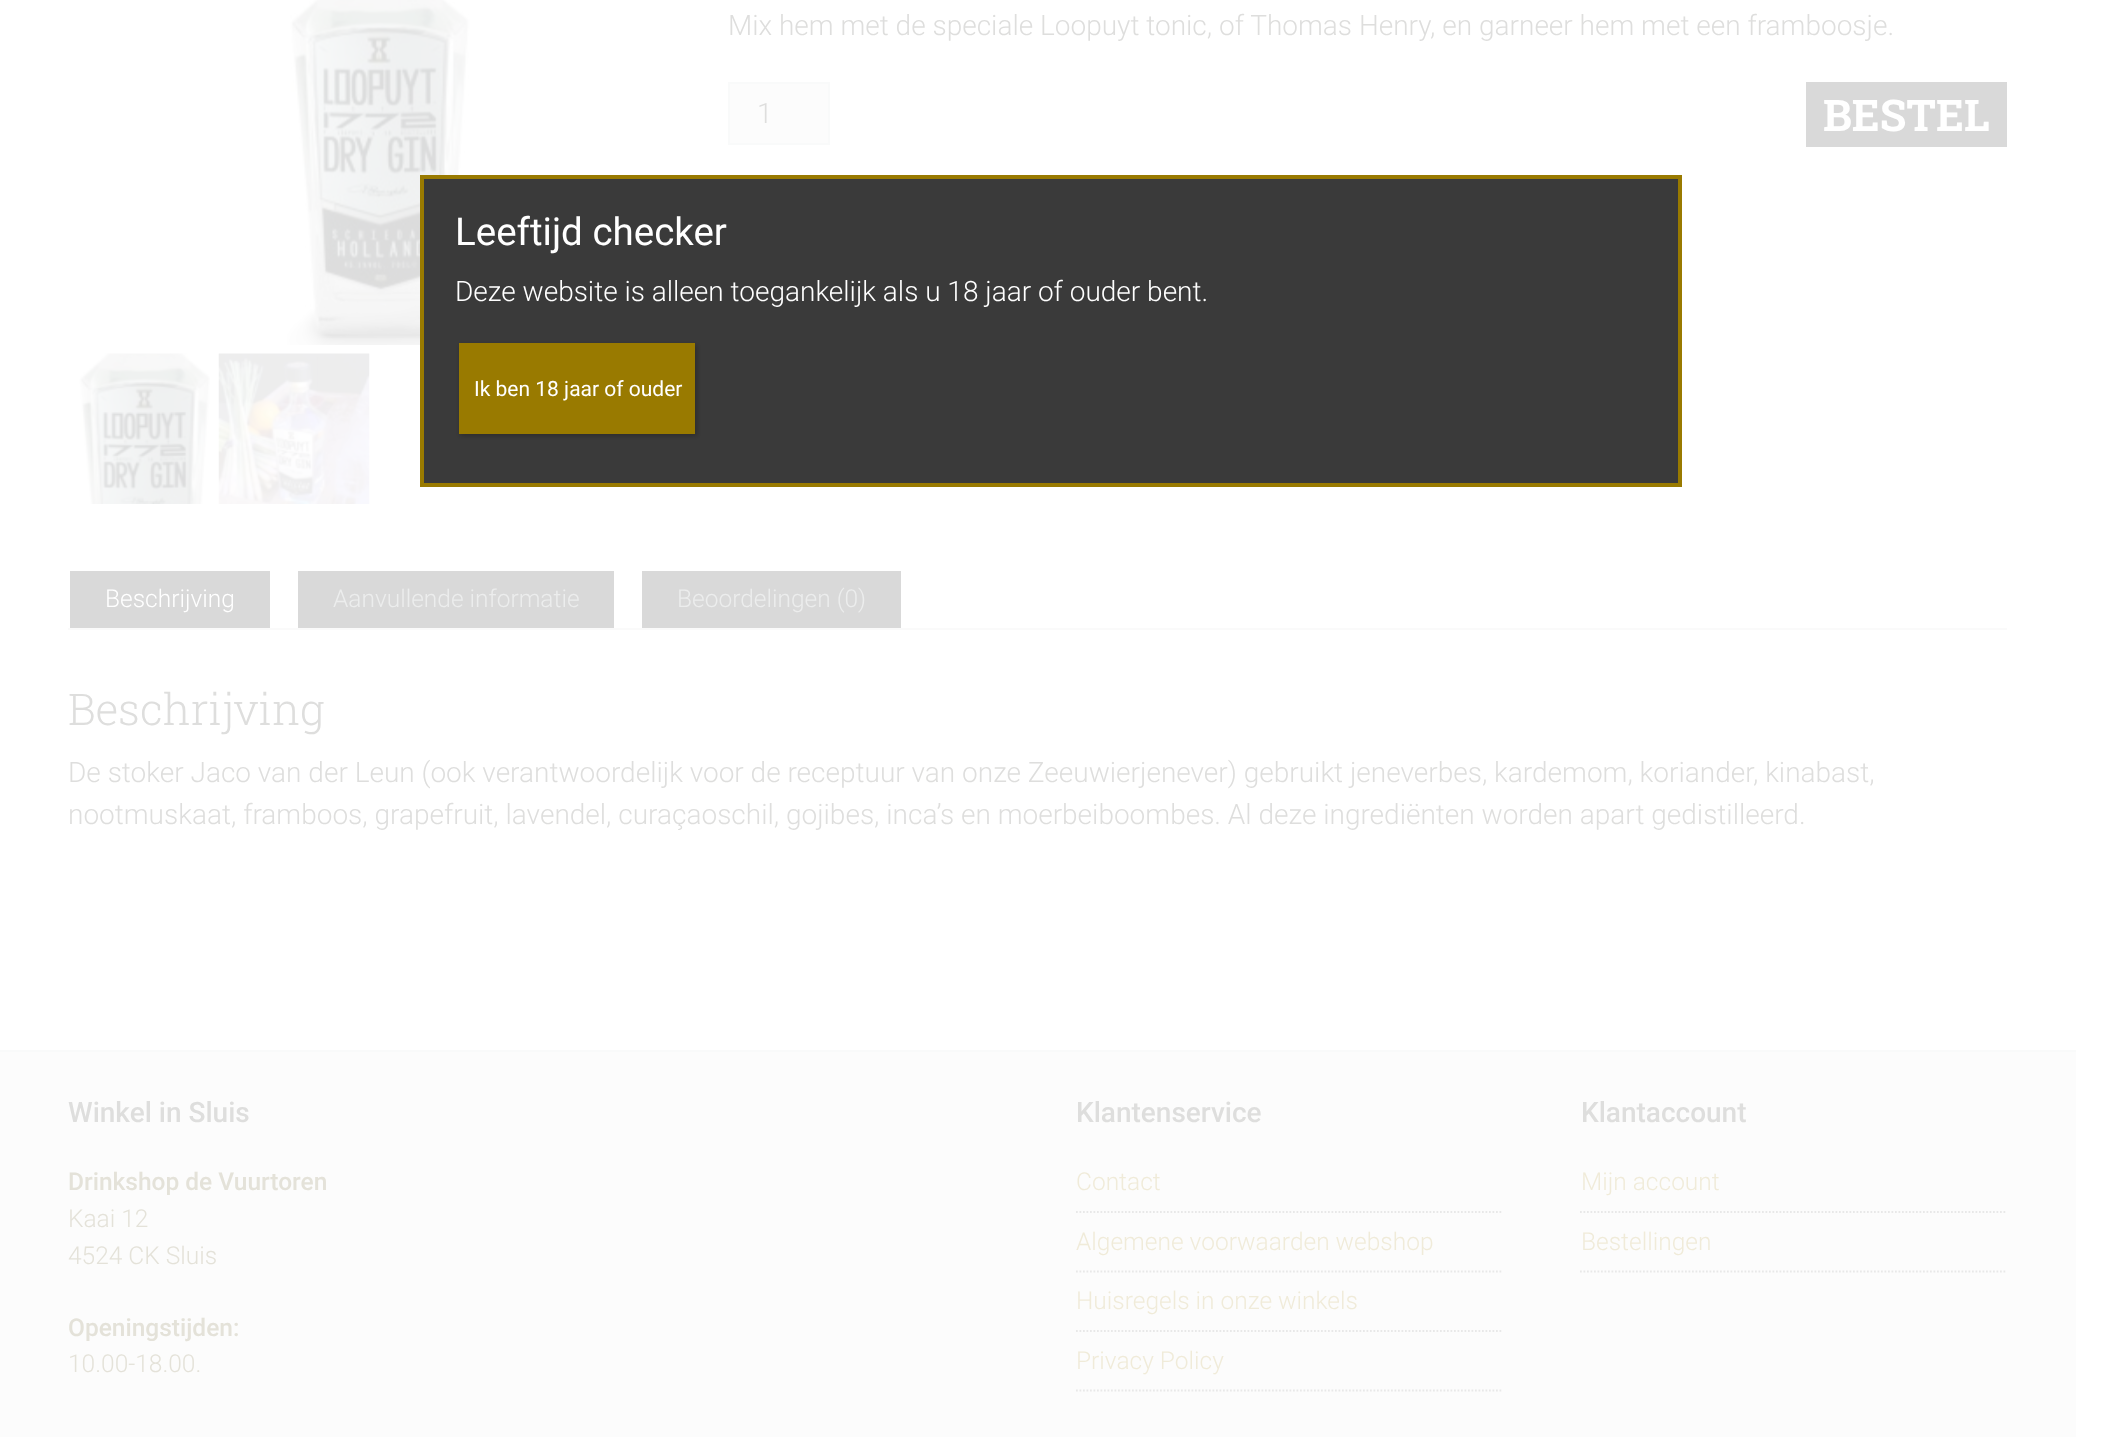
<svg xmlns="http://www.w3.org/2000/svg" width="2101" height="1437" viewBox="0 0 2101 1437">
  <defs>
    <filter id="blur1" x="-50%" y="-200%" width="200%" height="500%"><feGaussianBlur stdDeviation="2.5"/></filter>
  </defs>
  <rect width="100%" height="100%" fill="#ffffff"/>
  <image x="287" y="0" width="194" height="345" href="img1.png"/>
  <image x="79" y="353" width="131" height="151" href="img2.png"/>
  <image x="218" y="353" width="152" height="151" href="img3.png"/>
  <text x="728" y="35" font-family="Roboto" font-size="28" font-weight="300" fill="#dededd">Mix hem met de speciale Loopuyt tonic, of Thomas Henry, en garneer hem met een framboosje.</text>
  <rect x="729" y="83" width="100" height="61" fill="#fcfcfc" stroke="#f9fafa" stroke-width="2"/>
  <text x="757" y="123" font-family="Roboto" font-size="28" font-weight="300" fill="#dededd">1</text>
  <rect x="1806" y="82" width="201" height="65" fill="#d9d9d9"/>
  <text x="1823" y="131" font-family="Roboto Slab" font-size="43.75" font-weight="bold" fill="#ffffff">BESTEL</text>
  <rect x="68" y="628" width="1939" height="2" fill="#fafafa"/>
  <rect x="70" y="571" width="200" height="57" fill="#d9d9d9"/>
  <text x="105" y="607" font-family="Roboto" font-size="24.5" font-weight="300" fill="#ffffff">Beschrijving</text>
  <rect x="298" y="571" width="316" height="57" fill="#d9d9d9"/>
  <text x="333" y="607" font-family="Roboto" font-size="24.5" font-weight="300" fill="#eceded">Aanvullende informatie</text>
  <rect x="642" y="571" width="259" height="57" fill="#d9d9d9"/>
  <text x="677" y="607" font-family="Roboto" font-size="24.5" font-weight="300" fill="#eceded">Beoordelingen (0)</text>
  <text x="68" y="725" font-family="Roboto Slab" font-size="43.75" font-weight="300" fill="#dededd">Beschrijving</text>
  <text x="68" y="782" font-family="Roboto" font-size="28" font-weight="300" fill="#dededd">De stoker Jaco van der Leun (ook verantwoordelijk voor de receptuur van onze Zeeuwierjenever) gebruikt jeneverbes, kardemom, koriander, kinabast,</text>
  <text x="68" y="824" font-family="Roboto" font-size="28" font-weight="300" fill="#dededd">nootmuskaat, framboos, grapefruit, lavendel, curaçaoschil, gojibes, inca’s en moerbeiboombes. Al deze ingrediënten worden apart gedistilleerd.</text>
  <rect x="0" y="1052" width="2076" height="385" fill="#fcfcfc"/>
  <rect x="0" y="1050" width="2076" height="2" fill="#f9fafa"/>
  <text x="68" y="1122" font-family="Roboto" font-size="28" font-weight="500" fill="#dededd">Winkel in Sluis</text>
  <text x="68" y="1190" font-family="Roboto" font-size="24.5" font-weight="500" fill="#e4e2d9">Drinkshop de Vuurtoren</text>
  <text x="68" y="1227" font-family="Roboto" font-size="24.5" font-weight="300" fill="#e4e2d9">Kaai 12</text>
  <text x="68" y="1264" font-family="Roboto" font-size="24.5" font-weight="300" fill="#e4e2d9">4524 CK Sluis</text>
  <text x="68" y="1336" font-family="Roboto" font-size="24.5" font-weight="500" fill="#e4e2d9">Openingstijden:</text>
  <text x="68" y="1372" font-family="Roboto" font-size="24.5" font-weight="300" fill="#e4e2d9">10.00-18.00.</text>
  <text x="1076" y="1122" font-family="Roboto" font-size="28" font-weight="500" fill="#dededd">Klantenservice</text>
  <path d="M1076 1212H1503" fill="none" stroke="#e8e8e8" stroke-width="1.8" stroke-dasharray="1.75 1.75"/>
  <text x="1076" y="1190" font-family="Roboto" font-size="24.5" font-weight="300" fill="#f0ebd9">Contact</text>
  <path d="M1076 1271.5H1503" fill="none" stroke="#e8e8e8" stroke-width="1.8" stroke-dasharray="1.75 1.75"/>
  <text x="1076" y="1250" font-family="Roboto" font-size="24.5" font-weight="300" fill="#f0ebd9">Algemene voorwaarden webshop</text>
  <path d="M1076 1331H1503" fill="none" stroke="#e8e8e8" stroke-width="1.8" stroke-dasharray="1.75 1.75"/>
  <text x="1076" y="1309" font-family="Roboto" font-size="24.5" font-weight="300" fill="#f0ebd9">Huisregels in onze winkels</text>
  <path d="M1076 1390.5H1503" fill="none" stroke="#e8e8e8" stroke-width="1.8" stroke-dasharray="1.75 1.75"/>
  <text x="1076" y="1369" font-family="Roboto" font-size="24.5" font-weight="300" fill="#f0ebd9">Privacy Policy</text>
  <text x="1581" y="1122" font-family="Roboto" font-size="28" font-weight="500" fill="#dededd">Klantaccount</text>
  <path d="M1580 1212H2007" fill="none" stroke="#e8e8e8" stroke-width="1.8" stroke-dasharray="1.75 1.75"/>
  <text x="1581" y="1190" font-family="Roboto" font-size="24.5" font-weight="300" fill="#f0ebd9">Mijn account</text>
  <path d="M1580 1271.5H2007" fill="none" stroke="#e8e8e8" stroke-width="1.8" stroke-dasharray="1.75 1.75"/>
  <text x="1581" y="1250" font-family="Roboto" font-size="24.5" font-weight="300" fill="#f0ebd9">Bestellingen</text>
  <rect x="422" y="177" width="1258" height="308" fill="#3a3a3a" stroke="#997a00" stroke-width="4"/>
  <text x="455" y="245" font-family="Roboto" font-size="38.5" fill="#ffffff">Leeftijd checker</text>
  <text x="455" y="301" font-family="Roboto" font-size="28" font-weight="300" fill="#ffffff">Deze website is alleen toegankelijk als u 18 jaar of ouder bent.</text>
  <rect x="460" y="345" width="237" height="91" fill="#020202" fill-opacity="0.23" filter="url(#blur1)"/>
  <rect x="459" y="343" width="236" height="91" fill="#997a00"/>
  <text x="474" y="396" font-family="Roboto" font-size="21" fill="#ffffff">Ik ben 18 jaar of ouder</text>
</svg>
